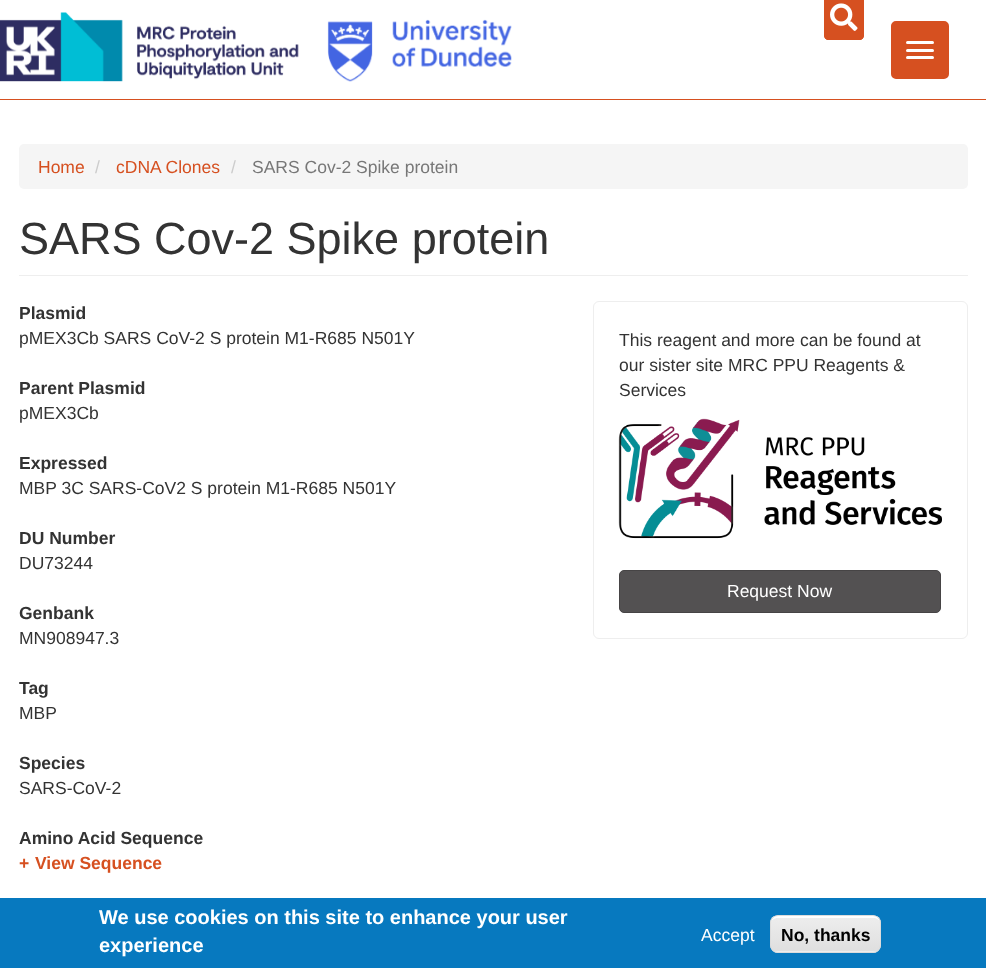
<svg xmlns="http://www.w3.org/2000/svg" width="986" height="968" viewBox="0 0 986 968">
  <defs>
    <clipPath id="clip1"><rect x="770" y="915" width="111" height="38" rx="8"/></clipPath>
    <linearGradient id="g1" gradientUnits="userSpaceOnUse" x1="826" y1="916" x2="826" y2="951"><stop offset="0.05" stop-color="#ededed"/><stop offset="1" stop-color="#dfdfdf"/></linearGradient>
    <linearGradient id="g2" gradientUnits="userSpaceOnUse" x1="826" y1="951" x2="826" y2="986"><stop offset="0.05" stop-color="#ededed"/><stop offset="1" stop-color="#dfdfdf"/></linearGradient>
  </defs>
  <rect width="100%" height="100%" fill="#ffffff"/>
  <rect x="0" y="99" width="986" height="1" fill="#d65020"/>
  <image x="0" y="12" width="299" height="70" href="img1.png"/>
  <image x="327" y="19" width="185" height="63" href="img2.png"/>
  <path d="M824 0H864V35C864 38 862 40 859 40H829C826 40 824 38 824 35Z" fill="#d65020"/>
  <path d="M824 0H864V35C864 38 862 40 859 40H829C826 40 824 38 824 35ZM826 0H861V35C861 36 860 38 859 38H829C827 38 826 36 826 35Z" fill="#d65020" fill-rule="evenodd"/>
  <image x="830" y="3" width="28" height="28" href="img3.png"/>
  <rect x="892.5" y="22.5" width="55" height="55" rx="3.5" fill="#d65020" stroke="#d65020" stroke-width="3"/>
  <rect x="906" y="41" width="28" height="3" rx="1.5" fill="#ffffff"/>
  <rect x="906" y="49" width="28" height="3" rx="1.5" fill="#ffffff"/>
  <rect x="906" y="56" width="28" height="3" rx="1.5" fill="#ffffff"/>
  <rect x="19" y="144" width="949" height="45" rx="5" fill="#f5f5f5"/>
  <text x="38" y="173" font-family="Liberation Sans" font-size="17.5" fill="#d65020">Home</text>
  <text x="95" y="173" font-family="Liberation Sans" font-size="17.5" fill="#cccccc">/</text>
  <text x="116" y="173" font-family="Liberation Sans" font-size="17.5" fill="#d65020">cDNA Clones</text>
  <text x="231" y="173" font-family="Liberation Sans" font-size="17.5" fill="#cccccc">/</text>
  <text x="252" y="173" font-family="Liberation Sans" font-size="17.5" fill="#777777">SARS Cov-2 Spike protein</text>
  <rect x="19" y="275" width="949" height="1" fill="#eeeeee"/>
  <text x="19" y="254" font-family="Liberation Sans" font-size="45" fill="#333333">SARS Cov-2 Spike protein</text>
  <text x="19" y="319" font-family="Liberation Sans" font-size="17.5" font-weight="bold" fill="#333333">Plasmid</text>
  <text x="19" y="344" font-family="Liberation Sans" font-size="17.5" fill="#333333">pMEX3Cb SARS CoV-2 S protein M1-R685 N501Y</text>
  <text x="19" y="394" font-family="Liberation Sans" font-size="17.5" font-weight="bold" fill="#333333">Parent Plasmid</text>
  <text x="19" y="419" font-family="Liberation Sans" font-size="17.5" fill="#333333">pMEX3Cb</text>
  <rect x="593.5" y="301.5" width="374" height="337" rx="5.5" fill="none" stroke="#eeeeee"/>
  <text x="619" y="346" font-family="Liberation Sans" font-size="17.5" fill="#333333">This reagent and more can be found at</text>
  <text x="619" y="371" font-family="Liberation Sans" font-size="17.5" fill="#333333">our sister site MRC PPU Reagents &amp;</text>
  <text x="619" y="396" font-family="Liberation Sans" font-size="17.5" fill="#333333">Services</text>
  <image x="618" y="418" width="324" height="121" href="img4.png"/>
  <rect x="619.5" y="570.5" width="321" height="42" rx="4.5" fill="#535152" stroke="#464445"/>
  <text x="727" y="597" font-family="Liberation Sans" font-size="17.5" fill="#ffffff">Request Now</text>
  <text x="19" y="469" font-family="Liberation Sans" font-size="17.5" font-weight="bold" fill="#333333">Expressed</text>
  <text x="19" y="494" font-family="Liberation Sans" font-size="17.5" fill="#333333">MBP 3C SARS-CoV2 S protein M1-R685 N501Y</text>
  <text x="19" y="544" font-family="Liberation Sans" font-size="17.5" font-weight="bold" fill="#333333">DU Number</text>
  <text x="19" y="569" font-family="Liberation Sans" font-size="17.5" fill="#333333">DU73244</text>
  <text x="19" y="619" font-family="Liberation Sans" font-size="17.5" font-weight="bold" fill="#333333">Genbank</text>
  <text x="19" y="644" font-family="Liberation Sans" font-size="17.5" fill="#333333">MN908947.3</text>
  <text x="19" y="694" font-family="Liberation Sans" font-size="17.5" font-weight="bold" fill="#333333">Tag</text>
  <text x="19" y="719" font-family="Liberation Sans" font-size="17.5" fill="#333333">MBP</text>
  <text x="19" y="769" font-family="Liberation Sans" font-size="17.5" font-weight="bold" fill="#333333">Species</text>
  <text x="19" y="794" font-family="Liberation Sans" font-size="17.5" fill="#333333">SARS-CoV-2</text>
  <text x="19" y="844" font-family="Liberation Sans" font-size="17.5" font-weight="bold" fill="#333333">Amino Acid Sequence</text>
  <text x="19" y="869" font-family="Liberation Sans" font-size="17.5" font-weight="bold" fill="#d65020">+</text>
  <text x="35" y="869" font-family="Liberation Sans" font-size="17.5" font-weight="bold" fill="#d65020">View Sequence</text>
  <rect x="0" y="898" width="986" height="70" fill="#0779bf"/>
  <text x="99" y="924" font-family="Liberation Sans" font-size="20" font-weight="bold" fill="#ffffff">We use cookies on this site to enhance your user</text>
  <text x="99" y="952" font-family="Liberation Sans" font-size="20" font-weight="bold" fill="#ffffff">experience</text>
  <text x="701" y="941" font-family="Liberation Sans" font-size="17.5" fill="#ffffff">Accept</text>
  <g clip-path="url(#clip1)">
    <rect x="770" y="916" width="111" height="35" fill="url(#g1)"/>
    <rect x="770" y="951" width="111" height="2" fill="url(#g2)"/>
  </g>
  <path d="M778 918H874C877 918 880 920 880 924C880 912 867 916 858 916H793C784 916 771 912 771 924C771 920 774 918 778 918Z" fill="#ffffff"/>
  <rect x="770.5" y="915.5" width="110" height="37" rx="7.5" fill="none" stroke="#dcdcdc"/>
  <text x="781" y="941" font-family="Liberation Sans" font-size="17.5" font-weight="bold" fill="#000000">No, thanks</text>
</svg>
